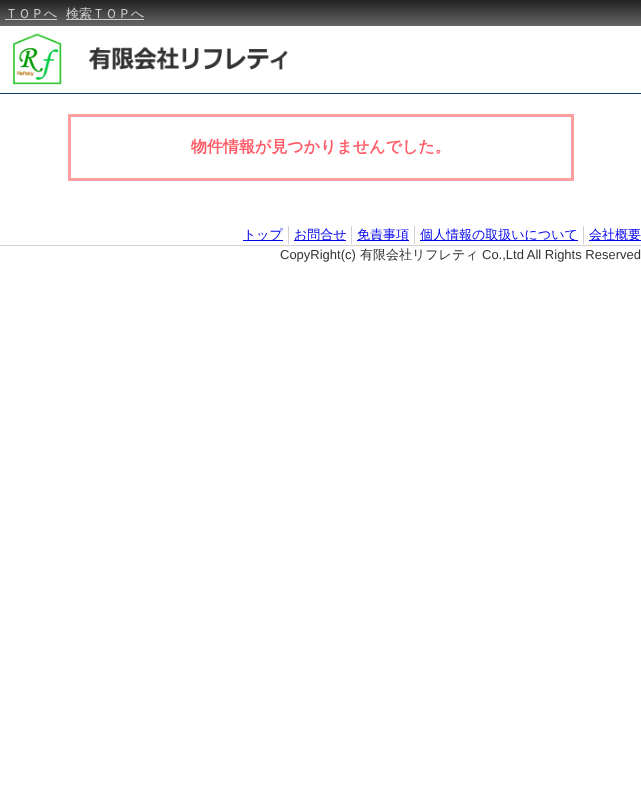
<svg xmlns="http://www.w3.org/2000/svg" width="641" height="810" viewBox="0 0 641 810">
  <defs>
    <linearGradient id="g1" gradientUnits="userSpaceOnUse" x1="0" y1="0" x2="0" y2="26"><stop offset="0" stop-color="#222222"/><stop offset="1" stop-color="#666666"/></linearGradient>
  </defs>
  <rect width="100%" height="100%" fill="#ffffff"/>
  <rect x="0" y="0" width="641" height="26" fill="url(#g1)"/>
  <text x="5" y="18" font-family="WenQuanYi Zen Hei" font-size="13" font-weight="500" fill="#cccccc">ＴＯＰへ</text>
  <rect x="5" y="19" width="52" height="1" fill="#cccccc"/>
  <rect x="66" y="19" width="78" height="1" fill="#cccccc"/>
  <text x="66" y="18" font-family="WenQuanYi Zen Hei" font-size="13" font-weight="500" fill="#cccccc">検索ＴＯＰへ</text>
  <image x="13" y="33" width="275" height="52" href="img1.png"/>
  <rect x="0" y="93" width="641" height="1" fill="#0e3d6b"/>
  <rect x="69.5" y="115.5" width="503" height="64" fill="none" stroke="#fe9f9f" stroke-width="3"/>
  <text x="191" y="152" font-family="WenQuanYi Zen Hei" font-size="16" font-weight="bold" fill="#ff5c68">物件情報が見つかりませんでした。</text>
  <rect x="288" y="226" width="1" height="18" fill="#d1d1d1"/>
  <rect x="243" y="240" width="40" height="1" fill="#0000ee"/>
  <text x="243" y="239" font-family="WenQuanYi Zen Hei" font-size="13" font-weight="500" fill="#0000ee">トップ</text>
  <rect x="351" y="226" width="1" height="18" fill="#d1d1d1"/>
  <rect x="294" y="240" width="52" height="1" fill="#0000ee"/>
  <text x="294" y="239" font-family="WenQuanYi Zen Hei" font-size="13" font-weight="500" fill="#0000ee">お問合せ</text>
  <rect x="414" y="226" width="1" height="18" fill="#d1d1d1"/>
  <rect x="357" y="240" width="52" height="1" fill="#0000ee"/>
  <text x="357" y="239" font-family="WenQuanYi Zen Hei" font-size="13" font-weight="500" fill="#0000ee">免責事項</text>
  <rect x="583" y="226" width="1" height="18" fill="#d1d1d1"/>
  <rect x="420" y="240" width="158" height="1" fill="#0000ee"/>
  <text x="420" y="239" font-family="WenQuanYi Zen Hei" font-size="13" font-weight="500" fill="#0000ee">個人情報の取扱いについて</text>
  <rect x="589" y="240" width="52" height="1" fill="#0000ee"/>
  <text x="589" y="239" font-family="WenQuanYi Zen Hei" font-size="13" font-weight="500" fill="#0000ee">会社概要</text>
  <rect x="0" y="245" width="641" height="1" fill="#d1d1d1"/>
  <text x="280" y="259" font-family="Liberation Sans" font-size="13" fill="#333333">CopyRight(c)</text>
  <text x="360" y="259" font-family="WenQuanYi Zen Hei" font-size="13" font-weight="500" fill="#333333">有限会社リフレティ</text>
  <text x="482" y="259" font-family="Liberation Sans" font-size="13" fill="#333333">Co.,Ltd All Rights Reserved</text>
</svg>
